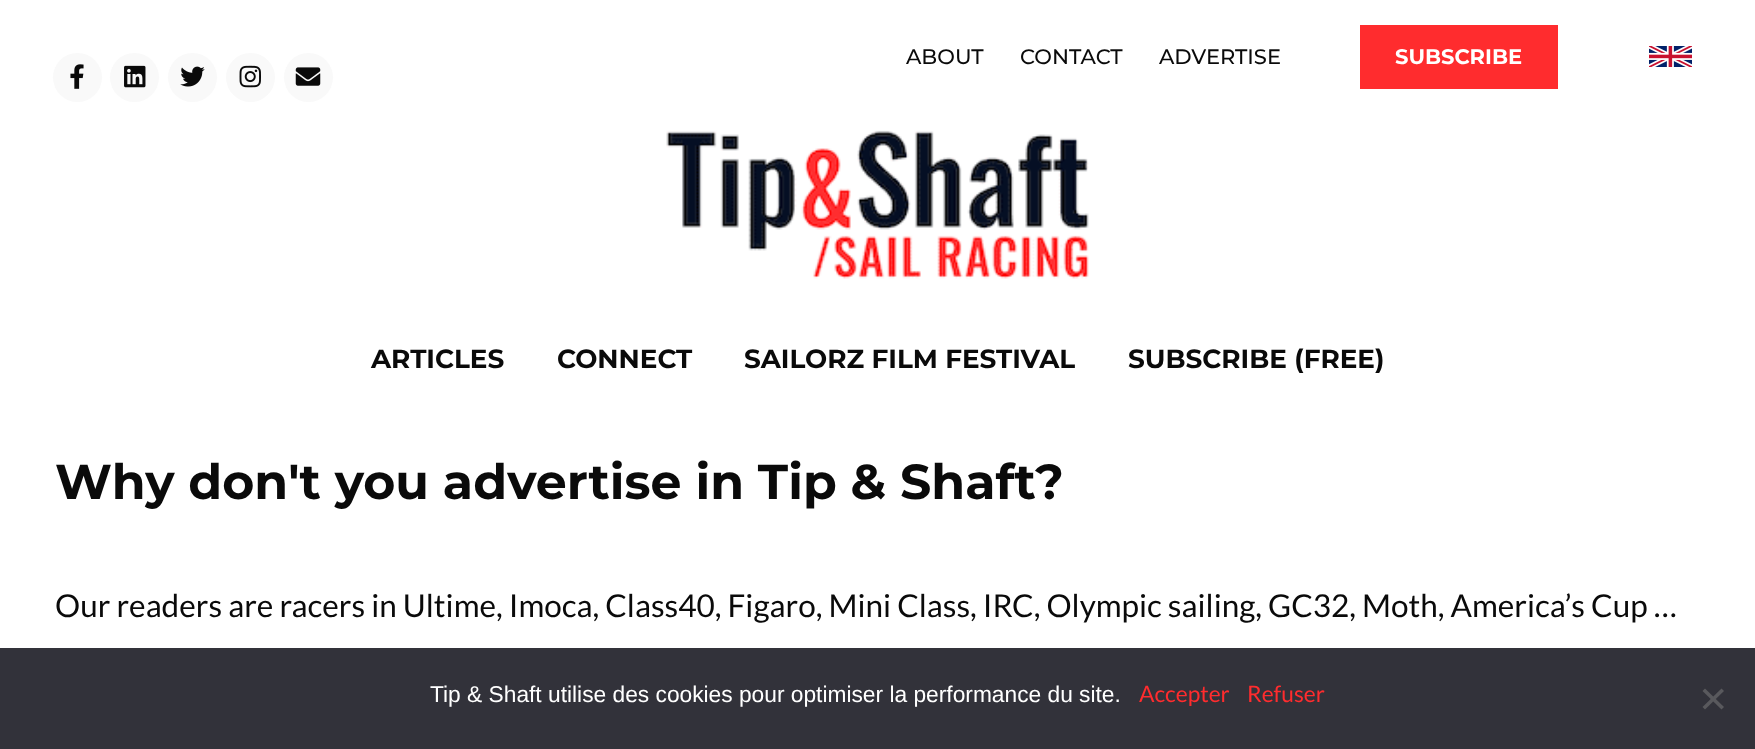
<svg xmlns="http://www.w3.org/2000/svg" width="1755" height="749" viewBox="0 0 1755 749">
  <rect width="100%" height="100%" fill="#ffffff"/>
  <circle cx="77.5" cy="77.5" r="24.5" fill="#f9f9f9"/>
  <image x="70" y="64" width="14" height="25" href="img1.png"/>
  <circle cx="134.5" cy="77.5" r="24.5" fill="#f9f9f9"/>
  <image x="124" y="65" width="22" height="23" href="img2.png"/>
  <circle cx="192.5" cy="77.5" r="24.5" fill="#f9f9f9"/>
  <image x="180" y="66" width="25" height="21" href="img3.png"/>
  <circle cx="250.5" cy="77.5" r="24.5" fill="#f9f9f9"/>
  <image x="239" y="65" width="22" height="23" href="img4.png"/>
  <circle cx="308.5" cy="77.5" r="24.5" fill="#f9f9f9"/>
  <image x="295" y="67" width="26" height="19" href="img5.png"/>
  <text x="906" y="64" font-family="Montserrat" font-size="21" font-weight="500" fill="#0a0a0a">ABOUT</text>
  <text x="1020" y="64" font-family="Montserrat" font-size="21" font-weight="500" fill="#0a0a0a">CONTACT</text>
  <text x="1159" y="64" font-family="Montserrat" font-size="21" font-weight="500" fill="#0a0a0a">ADVERTISE</text>
  <rect x="1360" y="25" width="198" height="64" fill="#ff2c2e"/>
  <text x="1395" y="64" font-family="Montserrat" font-size="21" font-weight="bold" fill="#ffffff">SUBSCRIBE</text>
  <image x="1649" y="46" width="43" height="21" href="img6.png"/>
  <image x="666" y="130" width="423" height="149" href="img7.png"/>
  <text x="371" y="368" font-family="Montserrat" font-size="26.25" font-weight="bold" fill="#0a0a0a">ARTICLES</text>
  <text x="557" y="368" font-family="Montserrat" font-size="26.25" font-weight="bold" fill="#0a0a0a">CONNECT</text>
  <text x="744" y="368" font-family="Montserrat" font-size="26.25" font-weight="bold" fill="#0a0a0a">SAILORZ FILM FESTIVAL</text>
  <text x="1128" y="368" font-family="Montserrat" font-size="26.25" font-weight="bold" fill="#0a0a0a">SUBSCRIBE (FREE)</text>
  <text x="55" y="499" font-family="Montserrat" font-size="49" font-weight="bold" fill="#0a0a0a">Why don't you advertise in Tip &amp; Shaft?</text>
  <text x="55" y="617" font-family="Lato" font-size="31.5" fill="#0a0a0a">Our readers are racers in Ultime, Imoca, Class40, Figaro, Mini Class, IRC, Olympic sailing, GC32, Moth, America’s Cup …</text>
  <rect x="0" y="648" width="1755" height="101" fill="#32323a"/>
  <text x="430" y="702" font-family="Liberation Sans" font-size="22.75" fill="#ffffff">Tip &amp; Shaft utilise des cookies pour optimiser la performance du site.</text>
  <text x="1139" y="702" font-family="Lato" font-size="22.75" fill="#ff2c2e">Accepter</text>
  <text x="1247" y="702" font-family="Lato" font-size="22.75" fill="#ff2c2e">Refuser</text>
  <path d="M1721.5 688.5L1724 691L1705 709.5L1702.5 707Z" fill="#59595d"/>
  <path d="M1702.5 691L1705 688.5L1724 707L1721.5 709.5Z" fill="#59595d"/>
</svg>
